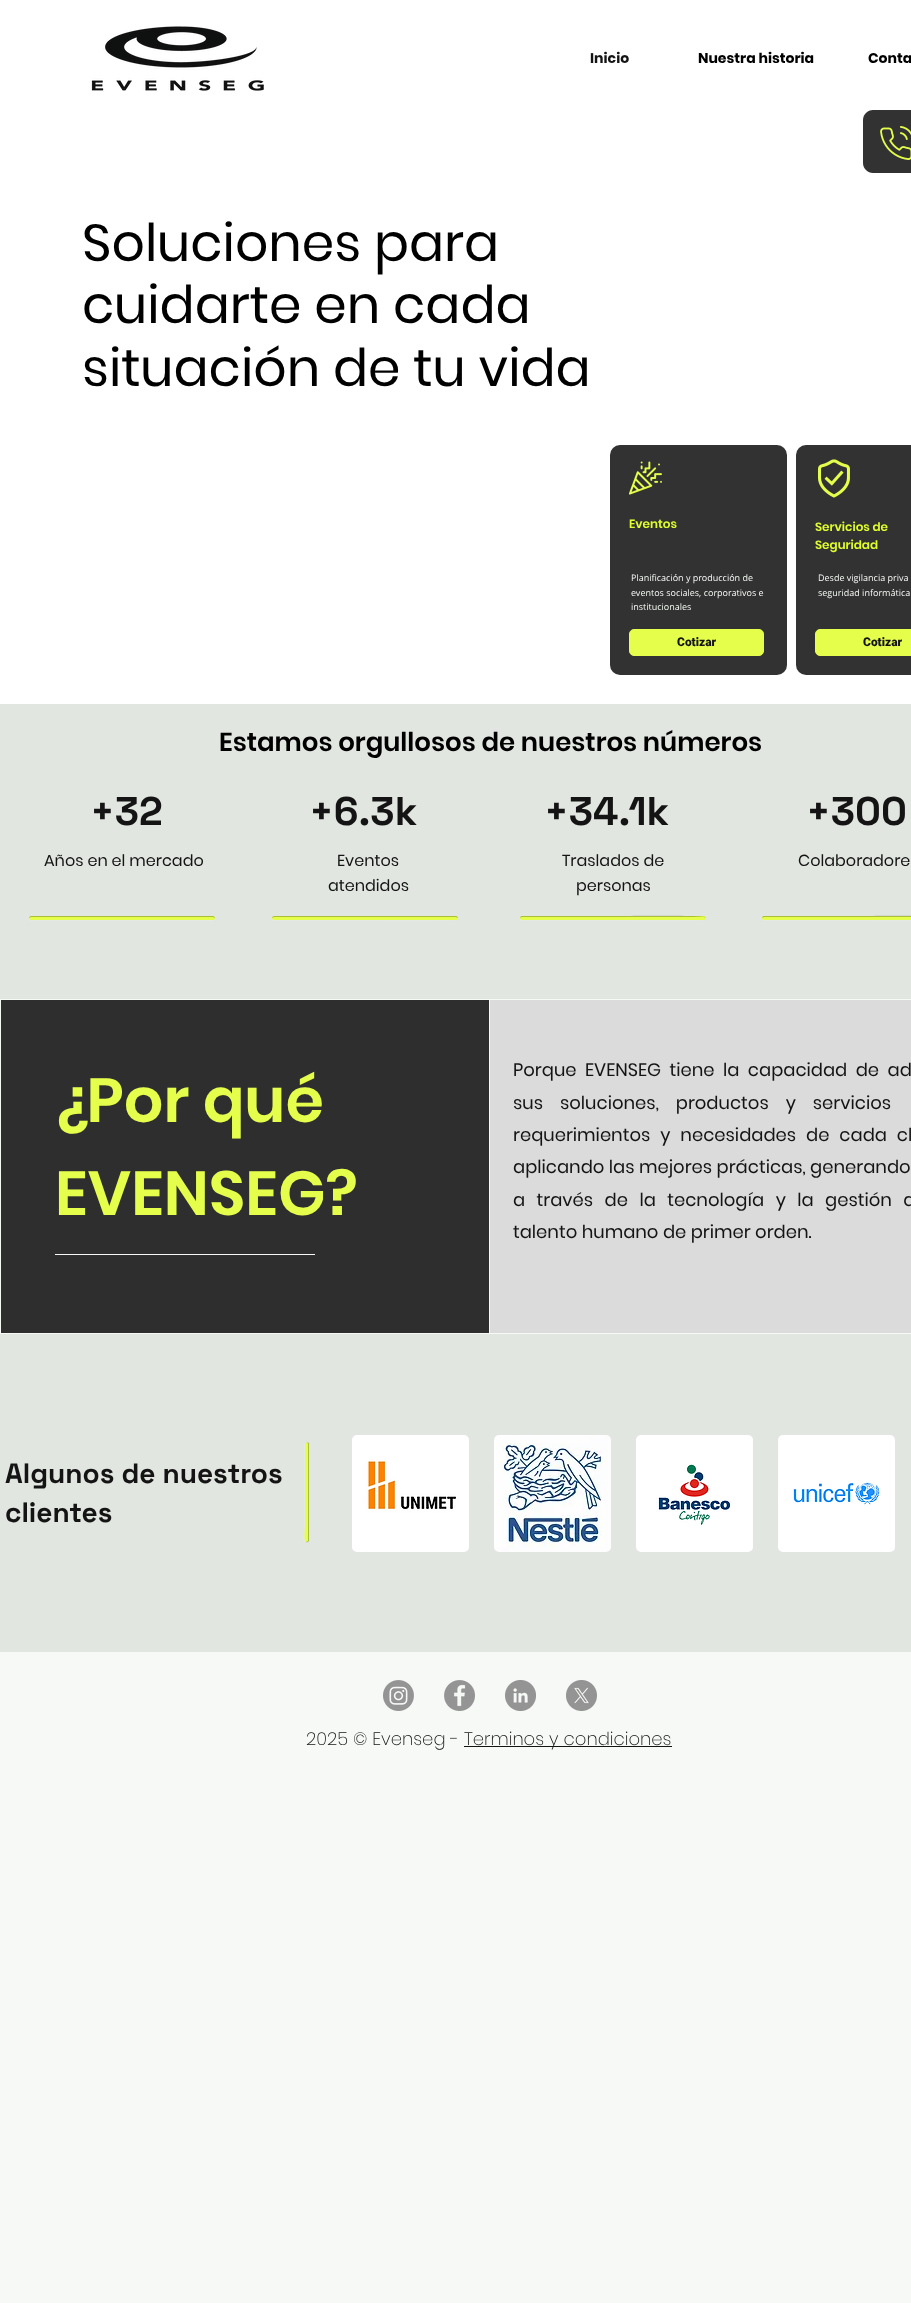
<svg xmlns="http://www.w3.org/2000/svg" width="911" height="2303" viewBox="0 0 911 2303">
  <rect width="100%" height="100%" fill="#f6f9f5"/>
  <rect x="0" y="0" width="911" height="704" fill="#ffffff"/>
  <image x="91" y="26" width="173" height="65" href="img1.png"/>
  <text x="590" y="63" font-family="Poppins" font-size="14" font-weight="bold" fill="#141414">Inicio</text>
  <text x="698" y="63" font-family="Poppins" font-size="14" font-weight="bold" fill="#000000">Nuestra historia</text>
  <text x="868" y="63" font-family="Poppins" font-size="14" font-weight="bold" fill="#000000">Conta</text>
  <path d="M873 110H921V173H873C867.5 173 863 168.5 863 163V120C863 114.5 867.5 110 873 110Z" fill="#323232"/>
  <image x="880" y="126" width="31" height="34" href="img2.png"/>
  <text x="82" y="261" font-family="Poppins" font-size="52" fill="#000000">Soluciones para</text>
  <text x="82" y="323" font-family="Poppins" font-size="52" fill="#000000">cuidarte en cada</text>
  <text x="82" y="386" font-family="Poppins" font-size="52" fill="#000000">situación de tu vida</text>
  <rect x="610" y="445" width="177" height="230" rx="10" fill="#323232"/>
  <image x="629" y="461" width="33" height="34" href="img3.png"/>
  <text x="629" y="528" font-family="Poppins" font-size="12" font-weight="600" fill="#e0fd2c">Eventos</text>
  <text x="631" y="581" font-family="Open Sans" font-size="9" fill="#f6f9f5">Planificación y producción de</text>
  <text x="631" y="596" font-family="Open Sans" font-size="9" fill="#f6f9f5">eventos sociales, corporativos e</text>
  <text x="631" y="610" font-family="Open Sans" font-size="9" fill="#f6f9f5">institucionales</text>
  <rect x="629.5" y="629.5" width="134" height="26" rx="4.5" fill="#e5fe4b" stroke="#e5fe4b"/>
  <text x="677" y="646" font-family="Roboto" font-size="12" font-weight="900" fill="#141414">Cotizar</text>
  <rect x="796" y="445" width="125" height="230" rx="10" fill="#323232"/>
  <image x="818" y="459" width="32" height="39" href="img4.png"/>
  <text x="815" y="531" font-family="Poppins" font-size="12" font-weight="600" fill="#e0fd2c">Servicios de</text>
  <text x="815" y="549" font-family="Poppins" font-size="12" font-weight="600" fill="#e0fd2c">Seguridad</text>
  <text x="818" y="581" font-family="Open Sans" font-size="9" fill="#f6f9f5">Desde vigilancia priva</text>
  <text x="818" y="596" font-family="Open Sans" font-size="9" fill="#f6f9f5">seguridad informática</text>
  <rect x="815.5" y="629.5" width="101" height="26" rx="4.5" fill="#e5fe4b" stroke="#e5fe4b"/>
  <text x="863" y="646" font-family="Roboto" font-size="12" font-weight="900" fill="#141414">Cotizar</text>
  <rect x="0" y="704" width="911" height="295" fill="#e2e6e1"/>
  <text x="219" y="751" font-family="Poppins" font-size="26" font-weight="600" fill="#000000">Estamos orgullosos de nuestros números</text>
  <text x="90" y="825" font-family="Space Grotesk" font-size="40" font-weight="bold" fill="#141414">+32</text>
  <text x="44" y="866" font-family="Poppins" font-size="16" fill="#141414">Años en el mercado</text>
  <path d="M29 918V920L31 921H213C214 921 215 920 215 918C215 919 214 920 213 920H31C30 920 29 919 29 918Z" fill="#e5e9e4"/>
  <rect x="29" y="916" width="186" height="4" rx="2" fill="#e5fe4b"/>
  <path d="M31 917H213L215 918C215 917 214 916 213 916H31C30 916 29 917 29 918Z" fill="#000000" fill-opacity="0.25"/>
  <text x="309" y="825" font-family="Space Grotesk" font-size="40" font-weight="bold" fill="#141414">+6.3k</text>
  <text x="337" y="866" font-family="Poppins" font-size="16" fill="#141414">Eventos</text>
  <text x="328" y="891" font-family="Poppins" font-size="16" fill="#141414">atendidos</text>
  <path d="M272 918C272 919 272 920 273 921H365C373 921 456 922 457 920L458 918C458 919 457 920 456 920H274C273 920 272 919 272 918Z" fill="#e5e9e4"/>
  <rect x="272" y="916" width="186" height="4" rx="2" fill="#e5fe4b"/>
  <path d="M274 917H456L458 918C458 917 457 916 456 916H274C273 916 272 917 272 918Z" fill="#000000" fill-opacity="0.25"/>
  <text x="544" y="825" font-family="Space Grotesk" font-size="40" font-weight="bold" fill="#141414">+34.1k</text>
  <text x="562" y="866" font-family="Poppins" font-size="16" fill="#141414">Traslados de</text>
  <text x="576" y="891" font-family="Poppins" font-size="16" fill="#141414">personas</text>
  <path d="M520 918C520 919 520 920 521 921H613C621 921 704 922 705 920L706 918C706 919 705 920 704 920H522C521 920 520 919 520 918Z" fill="#e5e9e4"/>
  <rect x="520" y="916" width="186" height="4" rx="2" fill="#e5fe4b"/>
  <path d="M522 917H704L706 918L705 917C704 915 621 916 613 916H521L520 918Z" fill="#000000" fill-opacity="0.25"/>
  <text x="806" y="825" font-family="Space Grotesk" font-size="40" font-weight="bold" fill="#141414">+300</text>
  <text x="798" y="866" font-family="Poppins" font-size="16" fill="#141414">Colaboradore</text>
  <path d="M762 918C762 919 762 920 763 921H855C863 921 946 922 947 920L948 918C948 919 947 920 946 920H764C763 920 762 919 762 918Z" fill="#e5e9e4"/>
  <rect x="762" y="916" width="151" height="4" rx="2" fill="#e5fe4b"/>
  <path d="M764 917H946L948 918L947 917C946 915 863 916 855 916H763L762 918Z" fill="#000000" fill-opacity="0.25"/>
  <rect x="1" y="1000" width="488" height="333" fill="#2f2e2e"/>
  <text x="55" y="1122" font-family="Poppins" font-size="62" font-weight="600" fill="#e5fe4b">¿Por qué</text>
  <text x="55" y="1215" font-family="Poppins" font-size="62" font-weight="600" fill="#e5fe4b">EVENSEG?</text>
  <rect x="55" y="1254" width="260" height="1" fill="#f6f9f5"/>
  <rect x="490" y="1000" width="421" height="333" fill="#dbdbdb"/>
  <text x="513" y="1076" word-spacing="4" font-family="Poppins" font-size="18" fill="#141414">Porque EVENSEG tiene la capacidad de ad</text>
  <text x="513" y="1109" word-spacing="12.5" font-family="Poppins" font-size="18" fill="#141414">sus soluciones, productos y servicios</text>
  <text x="513" y="1141" word-spacing="5.5" font-family="Poppins" font-size="18" fill="#141414">requerimientos y necesidades de cada cl</text>
  <text x="513" y="1173" font-family="Poppins" font-size="18" fill="#141414">aplicando las mejores prácticas, generando</text>
  <text x="513" y="1206" word-spacing="7" font-family="Poppins" font-size="18" fill="#141414">a través de la tecnología y la gestión d</text>
  <text x="513" y="1238" font-family="Poppins" font-size="18" fill="#141414">talento humano de primer orden.</text>
  <rect x="0" y="1334" width="911" height="318" fill="#e2e6e1"/>
  <text x="5" y="1483" font-family="Space Grotesk" font-size="28" font-weight="bold" fill="#141414">Algunos de nuestros</text>
  <text x="5" y="1522" font-family="Space Grotesk" font-size="28" font-weight="bold" fill="#141414">clientes</text>
  <path d="M306 1542L305 1540V1444L306 1443L304 1444V1511V1535C303 1536 303 1543 306 1542Z" fill="#e5e9e4"/>
  <path d="M309 1444V1541L307 1542C303 1543 305 1532 305 1524V1444L306 1443C307 1442 309 1443 309 1444Z" fill="#e5fe4b"/>
  <path d="M308 1444V1541L306 1542C307 1543 308 1542 309 1541V1443C308 1442 307 1442 306 1443C307 1442 308 1443 308 1444Z" fill="#000000" fill-opacity="0.25"/>
  <image x="352" y="1435" width="117" height="117" href="img5.png"/>
  <image x="494" y="1435" width="117" height="117" href="img6.png"/>
  <image x="636" y="1435" width="117" height="117" href="img7.png"/>
  <image x="778" y="1435" width="117" height="117" href="img8.png"/>
  <image x="383" y="1680" width="31" height="31" href="img9.png"/>
  <image x="444" y="1680" width="31" height="31" href="img10.png"/>
  <image x="505" y="1680" width="31" height="31" href="img11.png"/>
  <image x="566" y="1680" width="31" height="31" href="img12.png"/>
  <text x="306" y="1745" font-family="Poppins" font-size="18" font-weight="200" fill="#141414">2025 © Evenseg -</text>
  <rect x="464" y="1746" width="208" height="1" fill="#141414"/>
  <text x="464" y="1745" font-family="Poppins" font-size="18" font-weight="200" fill="#141414">Terminos y condiciones</text>
</svg>
